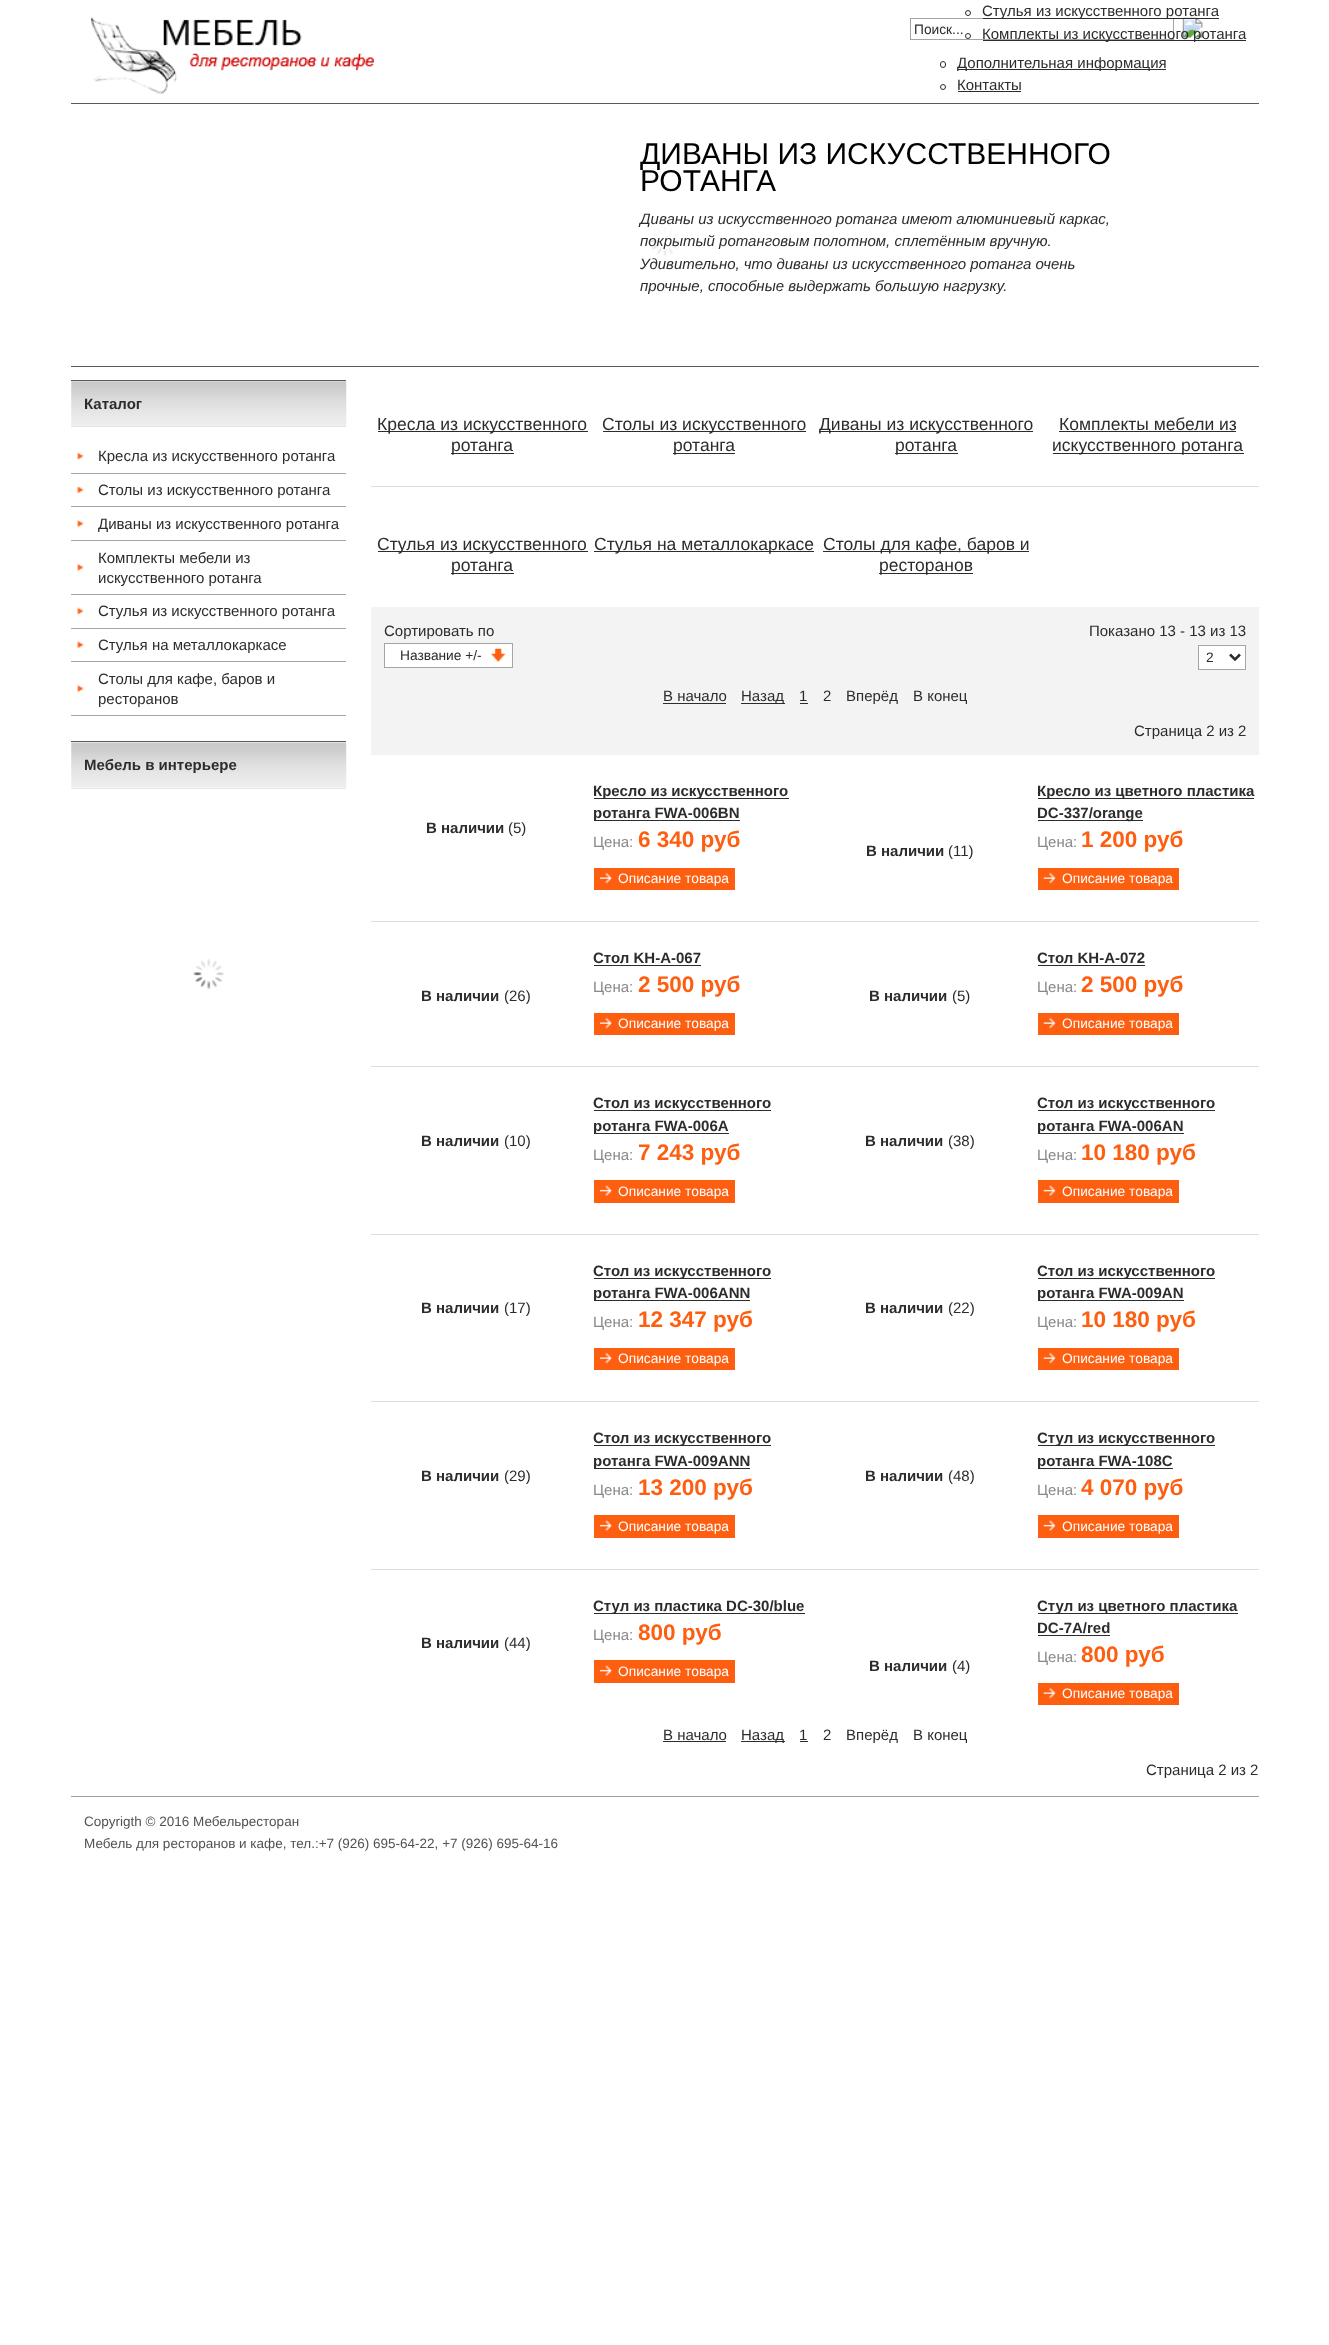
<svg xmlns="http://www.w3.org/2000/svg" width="1329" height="2345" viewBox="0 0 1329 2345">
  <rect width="100%" height="100%" fill="#ffffff"/>
  <image x="91" y="17" width="283" height="77" href="img1.png"/>
  <rect x="910.5" y="18.5" width="263" height="21" fill="none" stroke="#a5a5a5"/>
  <text x="914" y="34" font-family="Liberation Sans" font-size="13.75" fill="#2c2c2c">Поиск...</text>
  <image x="1182" y="17" width="21" height="21" href="img2.png"/>
  <circle cx="968" cy="13" r="2.5" fill="none" stroke="#2c2c2c"/>
  <rect x="983" y="18" width="236" height="1" fill="#2c2c2c"/>
  <text x="982" y="16" font-family="Liberation Sans" font-size="15" fill="#2c2c2c">Стулья из искусственного ротанга</text>
  <circle cx="968" cy="36" r="2.5" fill="none" stroke="#2c2c2c"/>
  <rect x="983" y="40" width="263" height="1" fill="#2c2c2c"/>
  <text x="982" y="39" font-family="Liberation Sans" font-size="15" fill="#2c2c2c">Комплекты из искусственного ротанга</text>
  <rect x="940.5" y="61.5" width="5" height="6" rx="2.5" fill="none" stroke="#2c2c2c"/>
  <rect x="958" y="69" width="208" height="1" fill="#2c2c2c"/>
  <text x="957" y="68" font-family="Liberation Sans" font-size="15" fill="#2c2c2c">Дополнительная информация</text>
  <circle cx="943" cy="87" r="2.5" fill="none" stroke="#2c2c2c"/>
  <text x="957" y="90" font-family="Liberation Sans" font-size="15" fill="#2c2c2c">Контакты</text>
  <rect x="958" y="91" width="63" height="1" fill="#2c2c2c"/>
  <rect x="71" y="103" width="1188" height="1" fill="#5a5a5a"/>
  <image x="650" y="226" width="30" height="31" href="img3.png"/>
  <text x="640" y="164" font-family="Liberation Sans" font-size="30" fill="#000000">ДИВАНЫ ИЗ ИСКУССТВЕННОГО</text>
  <text x="640" y="191" font-family="Liberation Sans" font-size="30" fill="#000000">РОТАНГА</text>
  <text x="640" y="224" font-family="Liberation Sans" font-size="15" font-style="italic" fill="#2c2c2c">Диваны из искусственного ротанга имеют алюминиевый каркас,</text>
  <text x="640" y="246" font-family="Liberation Sans" font-size="15" font-style="italic" fill="#2c2c2c">покрытый ротанговым полотном, сплетённым вручную.</text>
  <text x="640" y="269" font-family="Liberation Sans" font-size="15" font-style="italic" fill="#2c2c2c">Удивительно, что диваны из искусственного ротанга очень</text>
  <text x="640" y="291" font-family="Liberation Sans" font-size="15" font-style="italic" fill="#2c2c2c">прочные, способные выдержать большую нагрузку.</text>
  <rect x="71" y="366" width="1188" height="1" fill="#5a5a5a"/>
  <rect x="71" y="380" width="275" height="1" fill="#5a5a5a"/>
  <image x="71" y="381" width="276" height="46" href="img4.png"/>
  <rect x="71" y="426" width="275" height="1" fill="#e8e7e7"/>
  <text x="84" y="409" font-family="Liberation Sans" font-size="15" font-weight="bold" fill="#2c2c2c">Каталог</text>
  <rect x="71" y="473" width="275" height="1" fill="#a5a5a5"/>
  <image x="77" y="452" width="7" height="8" href="img5.png"/>
  <text x="98" y="461" font-family="Liberation Sans" font-size="15" fill="#2c2c2c">Кресла из искусственного ротанга</text>
  <rect x="71" y="506" width="275" height="1" fill="#a5a5a5"/>
  <image x="77" y="486" width="7" height="8" href="img6.png"/>
  <text x="98" y="495" font-family="Liberation Sans" font-size="15" fill="#2c2c2c">Столы из искусственного ротанга</text>
  <rect x="71" y="540" width="275" height="1" fill="#a5a5a5"/>
  <image x="77" y="520" width="7" height="8" href="img7.png"/>
  <text x="98" y="529" font-family="Liberation Sans" font-size="15" fill="#2c2c2c">Диваны из искусственного ротанга</text>
  <rect x="71" y="594" width="275" height="1" fill="#a5a5a5"/>
  <image x="77" y="563" width="7" height="9" href="img8.png"/>
  <text x="98" y="563" font-family="Liberation Sans" font-size="15" fill="#2c2c2c">Комплекты мебели из</text>
  <text x="98" y="583" font-family="Liberation Sans" font-size="15" fill="#2c2c2c">искусственного ротанга</text>
  <rect x="71" y="628" width="275" height="1" fill="#a5a5a5"/>
  <image x="77" y="607" width="7" height="8" href="img5.png"/>
  <text x="98" y="616" font-family="Liberation Sans" font-size="15" fill="#2c2c2c">Стулья из искусственного ротанга</text>
  <rect x="71" y="661" width="275" height="1" fill="#a5a5a5"/>
  <image x="77" y="641" width="7" height="8" href="img6.png"/>
  <text x="98" y="650" font-family="Liberation Sans" font-size="15" fill="#2c2c2c">Стулья на металлокаркасе</text>
  <rect x="71" y="715" width="275" height="1" fill="#a5a5a5"/>
  <image x="77" y="685" width="7" height="8" href="img7.png"/>
  <text x="98" y="684" font-family="Liberation Sans" font-size="15" fill="#2c2c2c">Столы для кафе, баров и</text>
  <text x="98" y="704" font-family="Liberation Sans" font-size="15" fill="#2c2c2c">ресторанов</text>
  <rect x="71" y="741" width="275" height="1" fill="#5a5a5a"/>
  <image x="71" y="742" width="276" height="46" href="img9.png"/>
  <rect x="71" y="788" width="275" height="1" fill="#e8e7e7"/>
  <text x="84" y="770" font-family="Liberation Sans" font-size="15" font-weight="bold" fill="#2c2c2c">Мебель в интерьере</text>
  <image x="193" y="959" width="31" height="30" href="img10.png"/>
  <rect x="378" y="431" width="210" height="1" fill="#2c2c2c"/>
  <text x="377" y="430" font-family="Liberation Sans" font-size="17.5" fill="#2c2c2c">Кресла из искусственного</text>
  <rect x="451" y="453" width="63" height="1" fill="#2c2c2c"/>
  <text x="451" y="451" font-family="Liberation Sans" font-size="17.5" fill="#2c2c2c">ротанга</text>
  <rect x="603" y="431" width="203" height="1" fill="#2c2c2c"/>
  <text x="602" y="430" font-family="Liberation Sans" font-size="17.5" fill="#2c2c2c">Столы из искусственного</text>
  <rect x="673" y="453" width="62" height="1" fill="#2c2c2c"/>
  <text x="673" y="451" font-family="Liberation Sans" font-size="17.5" fill="#2c2c2c">ротанга</text>
  <rect x="819" y="431" width="214" height="1" fill="#2c2c2c"/>
  <text x="819" y="430" font-family="Liberation Sans" font-size="17.5" fill="#2c2c2c">Диваны из искусственного</text>
  <rect x="895" y="453" width="63" height="1" fill="#2c2c2c"/>
  <text x="895" y="451" font-family="Liberation Sans" font-size="17.5" fill="#2c2c2c">ротанга</text>
  <text x="1059" y="430" font-family="Liberation Sans" font-size="17.5" fill="#2c2c2c">Комплекты мебели из</text>
  <rect x="1059" y="431" width="177" height="1" fill="#2c2c2c"/>
  <rect x="1053" y="453" width="191" height="1" fill="#2c2c2c"/>
  <text x="1052" y="451" font-family="Liberation Sans" font-size="17.5" fill="#2c2c2c">искусственного ротанга</text>
  <rect x="371" y="486" width="888" height="1" fill="#dddddd"/>
  <rect x="378" y="551" width="210" height="1" fill="#2c2c2c"/>
  <text x="377" y="550" font-family="Liberation Sans" font-size="17.5" fill="#2c2c2c">Стулья из искусственного</text>
  <rect x="451" y="573" width="63" height="1" fill="#2c2c2c"/>
  <text x="451" y="571" font-family="Liberation Sans" font-size="17.5" fill="#2c2c2c">ротанга</text>
  <rect x="594" y="551" width="220" height="1" fill="#2c2c2c"/>
  <text x="594" y="550" font-family="Liberation Sans" font-size="17.5" fill="#2c2c2c">Стулья на металлокаркасе</text>
  <rect x="823" y="551" width="206" height="1" fill="#2c2c2c"/>
  <text x="823" y="550" font-family="Liberation Sans" font-size="17.5" fill="#2c2c2c">Столы для кафе, баров и</text>
  <rect x="879" y="573" width="94" height="1" fill="#2c2c2c"/>
  <text x="879" y="571" font-family="Liberation Sans" font-size="17.5" fill="#2c2c2c">ресторанов</text>
  <rect x="371" y="607" width="888" height="148" fill="#f3f3f3"/>
  <text x="384" y="636" font-family="Liberation Sans" font-size="15" fill="#2c2c2c">Сортировать по</text>
  <rect x="385" y="644" width="127" height="23" fill="#ffffff"/>
  <image x="491" y="648" width="15" height="15" href="img11.png"/>
  <rect x="384.5" y="643.5" width="128" height="24" fill="none" stroke="#a5a5a5"/>
  <text x="400" y="660" font-family="Liberation Sans" font-size="13.75" fill="#2c2c2c">Название +/-</text>
  <text x="1089" y="636" font-family="Liberation Sans" font-size="15" fill="#2c2c2c">Показано 13 - 13 из 13</text>
  <rect x="1198.5" y="645.5" width="47" height="24" fill="#ffffff" stroke="#a5a5a5"/>
  <path d="M1230 654.5L1235 659.5L1240 654.5" fill="none" stroke="#2c2c2c" stroke-width="2.5"/>
  <text x="1206" y="662" font-family="Liberation Sans" font-size="13.75" fill="#2c2c2c">2</text>
  <text x="663" y="701" font-family="Liberation Sans" font-size="15" fill="#2c2c2c">В начало</text>
  <rect x="663" y="703" width="63" height="1" fill="#2c2c2c"/>
  <rect x="741" y="703" width="44" height="1" fill="#2c2c2c"/>
  <text x="741" y="701" font-family="Liberation Sans" font-size="15" fill="#2c2c2c">Назад</text>
  <text x="799" y="701" font-family="Liberation Sans" font-size="15" fill="#2c2c2c">1</text>
  <rect x="800" y="703" width="8" height="1" fill="#2c2c2c"/>
  <text x="823" y="701" font-family="Liberation Sans" font-size="15" fill="#2c2c2c">2</text>
  <text x="846" y="701" font-family="Liberation Sans" font-size="15" fill="#2c2c2c">Вперёд</text>
  <text x="913" y="701" font-family="Liberation Sans" font-size="15" fill="#2c2c2c">В конец</text>
  <text x="1134" y="736" font-family="Liberation Sans" font-size="15" fill="#2c2c2c">Страница 2 из 2</text>
  <text x="426" y="833" font-family="Liberation Sans" font-size="15" font-weight="bold" fill="#2c2c2c">В наличии</text>
  <text x="508" y="833" font-family="Liberation Sans" font-size="15" fill="#2c2c2c">(5)</text>
  <rect x="594" y="798" width="195" height="1" fill="#2c2c2c"/>
  <text x="593" y="796" font-family="Liberation Sans" font-size="15" font-weight="bold" fill="#2c2c2c">Кресло из искусственного</text>
  <rect x="594" y="820" width="146" height="1" fill="#2c2c2c"/>
  <text x="593" y="818" font-family="Liberation Sans" font-size="15" font-weight="bold" fill="#2c2c2c">ротанга FWA-006BN</text>
  <text x="593" y="847" font-family="Liberation Sans" font-size="15" fill="#888888">Цена:</text>
  <text x="638" y="847" font-family="Liberation Sans" font-size="22.5" font-weight="bold" fill="#fe5e10">6 340 руб</text>
  <rect x="594" y="868" width="141" height="22" fill="#fe5e10"/>
  <image x="600" y="872" width="12" height="12" href="img12.png"/>
  <text x="618" y="883" font-family="Liberation Sans" font-size="13.75" fill="#ffffff">Описание товара</text>
  <text x="866" y="856" font-family="Liberation Sans" font-size="15" font-weight="bold" fill="#2c2c2c">В наличии</text>
  <text x="948" y="856" font-family="Liberation Sans" font-size="15" fill="#2c2c2c">(11)</text>
  <rect x="1038" y="798" width="216" height="1" fill="#2c2c2c"/>
  <text x="1037" y="796" font-family="Liberation Sans" font-size="15" font-weight="bold" fill="#2c2c2c">Кресло из цветного пластика</text>
  <rect x="1038" y="820" width="105" height="1" fill="#2c2c2c"/>
  <text x="1037" y="818" font-family="Liberation Sans" font-size="15" font-weight="bold" fill="#2c2c2c">DC-337/orange</text>
  <text x="1037" y="847" font-family="Liberation Sans" font-size="15" fill="#888888">Цена:</text>
  <text x="1081" y="847" font-family="Liberation Sans" font-size="22.5" font-weight="bold" fill="#fe5e10">1 200 руб</text>
  <rect x="1038" y="868" width="141" height="22" fill="#fe5e10"/>
  <image x="1043" y="872" width="13" height="12" href="img13.png"/>
  <text x="1062" y="883" font-family="Liberation Sans" font-size="13.75" fill="#ffffff">Описание товара</text>
  <rect x="371" y="921" width="888" height="1" fill="#dddddd"/>
  <text x="421" y="1001" font-family="Liberation Sans" font-size="15" font-weight="bold" fill="#2c2c2c">В наличии</text>
  <text x="504" y="1001" font-family="Liberation Sans" font-size="15" fill="#2c2c2c">(26)</text>
  <text x="593" y="963" font-family="Liberation Sans" font-size="15" font-weight="bold" fill="#2c2c2c">Стол KH-A-067</text>
  <rect x="594" y="965" width="107" height="1" fill="#2c2c2c"/>
  <text x="593" y="992" font-family="Liberation Sans" font-size="15" fill="#888888">Цена:</text>
  <text x="638" y="992" font-family="Liberation Sans" font-size="22.5" font-weight="bold" fill="#fe5e10">2 500 руб</text>
  <rect x="594" y="1013" width="141" height="22" fill="#fe5e10"/>
  <image x="600" y="1017" width="12" height="12" href="img12.png"/>
  <text x="618" y="1028" font-family="Liberation Sans" font-size="13.75" fill="#ffffff">Описание товара</text>
  <text x="869" y="1001" font-family="Liberation Sans" font-size="15" font-weight="bold" fill="#2c2c2c">В наличии</text>
  <text x="952" y="1001" font-family="Liberation Sans" font-size="15" fill="#2c2c2c">(5)</text>
  <text x="1037" y="963" font-family="Liberation Sans" font-size="15" font-weight="bold" fill="#2c2c2c">Стол KH-A-072</text>
  <rect x="1038" y="965" width="107" height="1" fill="#2c2c2c"/>
  <text x="1037" y="992" font-family="Liberation Sans" font-size="15" fill="#888888">Цена:</text>
  <text x="1081" y="992" font-family="Liberation Sans" font-size="22.5" font-weight="bold" fill="#fe5e10">2 500 руб</text>
  <rect x="1038" y="1013" width="141" height="22" fill="#fe5e10"/>
  <image x="1043" y="1017" width="13" height="12" href="img13.png"/>
  <text x="1062" y="1028" font-family="Liberation Sans" font-size="13.75" fill="#ffffff">Описание товара</text>
  <rect x="371" y="1066" width="888" height="1" fill="#dddddd"/>
  <text x="421" y="1146" font-family="Liberation Sans" font-size="15" font-weight="bold" fill="#2c2c2c">В наличии</text>
  <text x="504" y="1146" font-family="Liberation Sans" font-size="15" fill="#2c2c2c">(10)</text>
  <rect x="594" y="1110" width="177" height="1" fill="#2c2c2c"/>
  <text x="593" y="1108" font-family="Liberation Sans" font-size="15" font-weight="bold" fill="#2c2c2c">Стол из искусственного</text>
  <rect x="594" y="1133" width="135" height="1" fill="#2c2c2c"/>
  <text x="593" y="1131" font-family="Liberation Sans" font-size="15" font-weight="bold" fill="#2c2c2c">ротанга FWA-006A</text>
  <text x="593" y="1160" font-family="Liberation Sans" font-size="15" fill="#888888">Цена:</text>
  <text x="638" y="1160" font-family="Liberation Sans" font-size="22.5" font-weight="bold" fill="#fe5e10">7 243 руб</text>
  <rect x="594" y="1180" width="141" height="23" fill="#fe5e10"/>
  <image x="600" y="1185" width="12" height="12" href="img14.png"/>
  <text x="618" y="1196" font-family="Liberation Sans" font-size="13.75" fill="#ffffff">Описание товара</text>
  <text x="865" y="1146" font-family="Liberation Sans" font-size="15" font-weight="bold" fill="#2c2c2c">В наличии</text>
  <text x="948" y="1146" font-family="Liberation Sans" font-size="15" fill="#2c2c2c">(38)</text>
  <rect x="1038" y="1110" width="177" height="1" fill="#2c2c2c"/>
  <text x="1037" y="1108" font-family="Liberation Sans" font-size="15" font-weight="bold" fill="#2c2c2c">Стол из искусственного</text>
  <rect x="1038" y="1133" width="146" height="1" fill="#2c2c2c"/>
  <text x="1037" y="1131" font-family="Liberation Sans" font-size="15" font-weight="bold" fill="#2c2c2c">ротанга FWA-006AN</text>
  <text x="1037" y="1160" font-family="Liberation Sans" font-size="15" fill="#888888">Цена:</text>
  <text x="1081" y="1160" font-family="Liberation Sans" font-size="22.5" font-weight="bold" fill="#fe5e10">10 180 руб</text>
  <rect x="1038" y="1180" width="141" height="23" fill="#fe5e10"/>
  <image x="1043" y="1185" width="13" height="12" href="img15.png"/>
  <text x="1062" y="1196" font-family="Liberation Sans" font-size="13.75" fill="#ffffff">Описание товара</text>
  <rect x="371" y="1234" width="888" height="1" fill="#dddddd"/>
  <text x="421" y="1313" font-family="Liberation Sans" font-size="15" font-weight="bold" fill="#2c2c2c">В наличии</text>
  <text x="504" y="1313" font-family="Liberation Sans" font-size="15" fill="#2c2c2c">(17)</text>
  <rect x="594" y="1278" width="177" height="1" fill="#2c2c2c"/>
  <text x="593" y="1276" font-family="Liberation Sans" font-size="15" font-weight="bold" fill="#2c2c2c">Стол из искусственного</text>
  <rect x="594" y="1300" width="156" height="1" fill="#2c2c2c"/>
  <text x="593" y="1298" font-family="Liberation Sans" font-size="15" font-weight="bold" fill="#2c2c2c">ротанга FWA-006ANN</text>
  <text x="593" y="1327" font-family="Liberation Sans" font-size="15" fill="#888888">Цена:</text>
  <text x="638" y="1327" font-family="Liberation Sans" font-size="22.5" font-weight="bold" fill="#fe5e10">12 347 руб</text>
  <rect x="594" y="1348" width="141" height="22" fill="#fe5e10"/>
  <image x="600" y="1352" width="12" height="12" href="img12.png"/>
  <text x="618" y="1363" font-family="Liberation Sans" font-size="13.75" fill="#ffffff">Описание товара</text>
  <text x="865" y="1313" font-family="Liberation Sans" font-size="15" font-weight="bold" fill="#2c2c2c">В наличии</text>
  <text x="948" y="1313" font-family="Liberation Sans" font-size="15" fill="#2c2c2c">(22)</text>
  <rect x="1038" y="1278" width="177" height="1" fill="#2c2c2c"/>
  <text x="1037" y="1276" font-family="Liberation Sans" font-size="15" font-weight="bold" fill="#2c2c2c">Стол из искусственного</text>
  <rect x="1038" y="1300" width="146" height="1" fill="#2c2c2c"/>
  <text x="1037" y="1298" font-family="Liberation Sans" font-size="15" font-weight="bold" fill="#2c2c2c">ротанга FWA-009AN</text>
  <text x="1037" y="1327" font-family="Liberation Sans" font-size="15" fill="#888888">Цена:</text>
  <text x="1081" y="1327" font-family="Liberation Sans" font-size="22.5" font-weight="bold" fill="#fe5e10">10 180 руб</text>
  <rect x="1038" y="1348" width="141" height="22" fill="#fe5e10"/>
  <image x="1043" y="1352" width="13" height="12" href="img13.png"/>
  <text x="1062" y="1363" font-family="Liberation Sans" font-size="13.75" fill="#ffffff">Описание товара</text>
  <rect x="371" y="1401" width="888" height="1" fill="#dddddd"/>
  <text x="421" y="1481" font-family="Liberation Sans" font-size="15" font-weight="bold" fill="#2c2c2c">В наличии</text>
  <text x="504" y="1481" font-family="Liberation Sans" font-size="15" fill="#2c2c2c">(29)</text>
  <rect x="594" y="1445" width="177" height="1" fill="#2c2c2c"/>
  <text x="593" y="1443" font-family="Liberation Sans" font-size="15" font-weight="bold" fill="#2c2c2c">Стол из искусственного</text>
  <rect x="594" y="1468" width="156" height="1" fill="#2c2c2c"/>
  <text x="593" y="1466" font-family="Liberation Sans" font-size="15" font-weight="bold" fill="#2c2c2c">ротанга FWA-009ANN</text>
  <text x="593" y="1495" font-family="Liberation Sans" font-size="15" fill="#888888">Цена:</text>
  <text x="638" y="1495" font-family="Liberation Sans" font-size="22.5" font-weight="bold" fill="#fe5e10">13 200 руб</text>
  <rect x="594" y="1515" width="141" height="23" fill="#fe5e10"/>
  <image x="600" y="1520" width="12" height="12" href="img14.png"/>
  <text x="618" y="1531" font-family="Liberation Sans" font-size="13.75" fill="#ffffff">Описание товара</text>
  <text x="865" y="1481" font-family="Liberation Sans" font-size="15" font-weight="bold" fill="#2c2c2c">В наличии</text>
  <text x="948" y="1481" font-family="Liberation Sans" font-size="15" fill="#2c2c2c">(48)</text>
  <rect x="1038" y="1445" width="177" height="1" fill="#2c2c2c"/>
  <text x="1037" y="1443" font-family="Liberation Sans" font-size="15" font-weight="bold" fill="#2c2c2c">Стул из искусственного</text>
  <rect x="1038" y="1468" width="135" height="1" fill="#2c2c2c"/>
  <text x="1037" y="1466" font-family="Liberation Sans" font-size="15" font-weight="bold" fill="#2c2c2c">ротанга FWA-108C</text>
  <text x="1037" y="1495" font-family="Liberation Sans" font-size="15" fill="#888888">Цена:</text>
  <text x="1081" y="1495" font-family="Liberation Sans" font-size="22.5" font-weight="bold" fill="#fe5e10">4 070 руб</text>
  <rect x="1038" y="1515" width="141" height="23" fill="#fe5e10"/>
  <image x="1043" y="1520" width="13" height="12" href="img15.png"/>
  <text x="1062" y="1531" font-family="Liberation Sans" font-size="13.75" fill="#ffffff">Описание товара</text>
  <rect x="371" y="1569" width="888" height="1" fill="#dddddd"/>
  <text x="421" y="1648" font-family="Liberation Sans" font-size="15" font-weight="bold" fill="#2c2c2c">В наличии</text>
  <text x="504" y="1648" font-family="Liberation Sans" font-size="15" fill="#2c2c2c">(44)</text>
  <rect x="594" y="1613" width="211" height="1" fill="#2c2c2c"/>
  <text x="593" y="1611" font-family="Liberation Sans" font-size="15" font-weight="bold" fill="#2c2c2c">Стул из пластика DC-30/blue</text>
  <text x="593" y="1640" font-family="Liberation Sans" font-size="15" fill="#888888">Цена:</text>
  <text x="638" y="1640" font-family="Liberation Sans" font-size="22.5" font-weight="bold" fill="#fe5e10">800 руб</text>
  <rect x="594" y="1660" width="141" height="23" fill="#fe5e10"/>
  <image x="600" y="1665" width="12" height="12" href="img14.png"/>
  <text x="618" y="1676" font-family="Liberation Sans" font-size="13.75" fill="#ffffff">Описание товара</text>
  <text x="869" y="1671" font-family="Liberation Sans" font-size="15" font-weight="bold" fill="#2c2c2c">В наличии</text>
  <text x="952" y="1671" font-family="Liberation Sans" font-size="15" fill="#2c2c2c">(4)</text>
  <rect x="1038" y="1613" width="200" height="1" fill="#2c2c2c"/>
  <text x="1037" y="1611" font-family="Liberation Sans" font-size="15" font-weight="bold" fill="#2c2c2c">Стул из цветного пластика</text>
  <text x="1037" y="1633" font-family="Liberation Sans" font-size="15" font-weight="bold" fill="#2c2c2c">DC-7А/red</text>
  <rect x="1038" y="1635" width="72" height="1" fill="#2c2c2c"/>
  <text x="1037" y="1662" font-family="Liberation Sans" font-size="15" fill="#888888">Цена:</text>
  <text x="1081" y="1662" font-family="Liberation Sans" font-size="22.5" font-weight="bold" fill="#fe5e10">800 руб</text>
  <rect x="1038" y="1683" width="141" height="22" fill="#fe5e10"/>
  <image x="1043" y="1687" width="13" height="12" href="img13.png"/>
  <text x="1062" y="1698" font-family="Liberation Sans" font-size="13.75" fill="#ffffff">Описание товара</text>
  <text x="663" y="1740" font-family="Liberation Sans" font-size="15" fill="#2c2c2c">В начало</text>
  <rect x="663" y="1741" width="63" height="1" fill="#2c2c2c"/>
  <rect x="741" y="1741" width="44" height="1" fill="#2c2c2c"/>
  <text x="741" y="1740" font-family="Liberation Sans" font-size="15" fill="#2c2c2c">Назад</text>
  <text x="799" y="1740" font-family="Liberation Sans" font-size="15" fill="#2c2c2c">1</text>
  <rect x="800" y="1741" width="8" height="1" fill="#2c2c2c"/>
  <text x="823" y="1740" font-family="Liberation Sans" font-size="15" fill="#2c2c2c">2</text>
  <text x="846" y="1740" font-family="Liberation Sans" font-size="15" fill="#2c2c2c">Вперёд</text>
  <text x="913" y="1740" font-family="Liberation Sans" font-size="15" fill="#2c2c2c">В конец</text>
  <text x="1146" y="1775" font-family="Liberation Sans" font-size="15" fill="#2c2c2c">Страница 2 из 2</text>
  <rect x="71" y="1796" width="1188" height="1" fill="#a0a0a0"/>
  <text x="84" y="1826" font-family="Liberation Sans" font-size="13.5" fill="#525252">Copyrigth © 2016 Мебельресторан</text>
  <text x="84" y="1848" font-family="Liberation Sans" font-size="13.5" fill="#525252">Мебель для ресторанов и кафе, тел.:+7 (926) 695-64-22, +7 (926) 695-64-16</text>
</svg>
